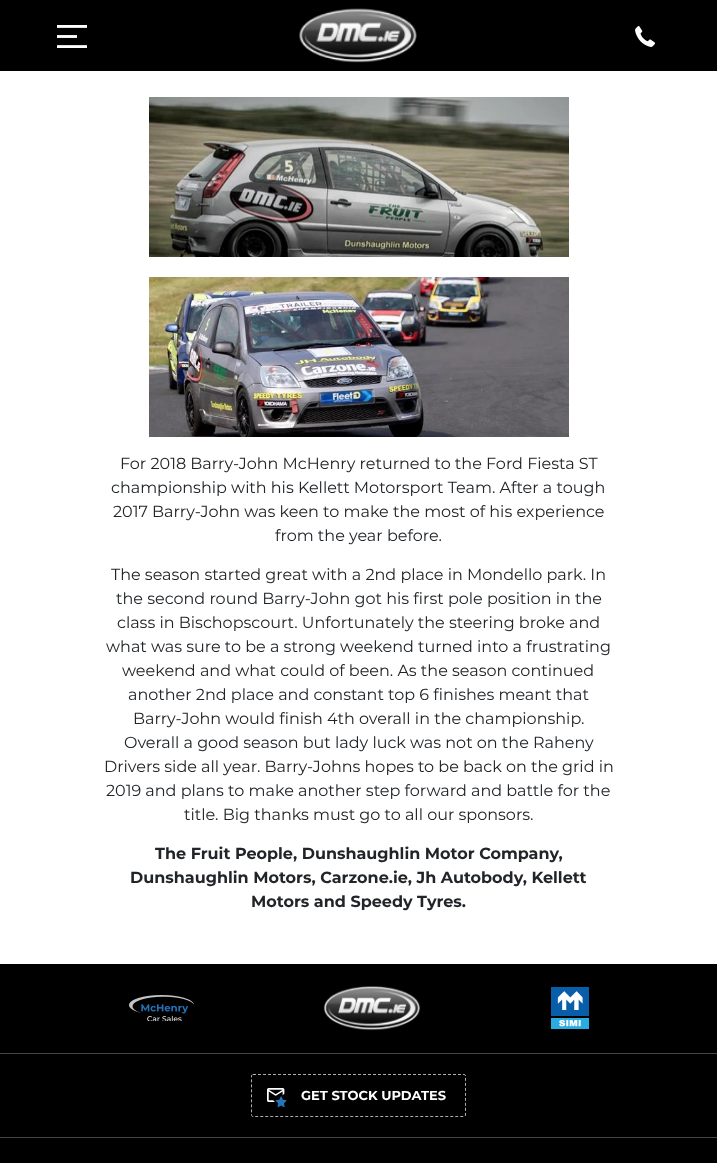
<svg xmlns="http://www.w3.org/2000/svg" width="717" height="1163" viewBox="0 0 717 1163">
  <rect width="100%" height="100%" fill="#ffffff"/>
  <rect x="0" y="0" width="717" height="71" fill="#000000"/>
  <image x="57" y="25" width="30" height="23" href="img1.png"/>
  <image x="299" y="8" width="118" height="55" href="img2.png"/>
  <image x="635" y="26" width="20" height="21" href="img3.png"/>
  <image x="149" y="97" width="420" height="160" href="img4.png"/>
  <image x="149" y="277" width="420" height="160" href="img5.png"/>
  <text x="120" y="469" font-family="Montserrat" font-size="16" fill="#212529">For 2018 Barry-John McHenry returned to the Ford Fiesta ST</text>
  <text x="111" y="493" font-family="Montserrat" font-size="16" fill="#212529">championship with his Kellett Motorsport Team. After a tough</text>
  <text x="113" y="517" font-family="Montserrat" font-size="16" fill="#212529">2017 Barry-John was keen to make the most of his experience</text>
  <text x="275" y="541" font-family="Montserrat" font-size="16" fill="#212529">from the year before.</text>
  <text x="111" y="580" font-family="Montserrat" font-size="16" fill="#212529">The season started great with a 2nd place in Mondello park. In</text>
  <text x="116" y="604" font-family="Montserrat" font-size="16" fill="#212529">the second round Barry-John got his first pole position in the</text>
  <text x="117" y="628" font-family="Montserrat" font-size="16" fill="#212529">class in Bischopscourt. Unfortunately the steering broke and</text>
  <text x="106" y="652" font-family="Montserrat" font-size="16" fill="#212529">what was sure to be a strong weekend turned into a frustrating</text>
  <text x="122" y="676" font-family="Montserrat" font-size="16" fill="#212529">weekend and what could of been. As the season continued</text>
  <text x="128" y="700" font-family="Montserrat" font-size="16" fill="#212529">another 2nd place and constant top 6 finishes meant that</text>
  <text x="133" y="724" font-family="Montserrat" font-size="16" fill="#212529">Barry-John would finish 4th overall in the championship.</text>
  <text x="124" y="748" font-family="Montserrat" font-size="16" fill="#212529">Overall a good season but lady luck was not on the Raheny</text>
  <text x="104" y="772" font-family="Montserrat" font-size="16" fill="#212529">Drivers side all year. Barry-Johns hopes to be back on the grid in</text>
  <text x="106" y="796" font-family="Montserrat" font-size="16" fill="#212529">2019 and plans to make another step forward and battle for the</text>
  <text x="184" y="820" font-family="Montserrat" font-size="16" fill="#212529">title. Big thanks must go to all our sponsors.</text>
  <text x="155" y="859" font-family="Montserrat" font-size="16" font-weight="bold" fill="#212529">The Fruit People, Dunshaughlin Motor Company,</text>
  <text x="130" y="883" font-family="Montserrat" font-size="16" font-weight="bold" fill="#212529">Dunshaughlin Motors, Carzone.ie, Jh Autobody, Kellett</text>
  <text x="251" y="907" font-family="Montserrat" font-size="16" font-weight="bold" fill="#212529">Motors and Speedy Tyres.</text>
  <rect x="0" y="964" width="717" height="199" fill="#000000"/>
  <image x="129" y="995" width="65" height="26" href="img6.png"/>
  <image x="323" y="986" width="98" height="45" href="img7.png"/>
  <image x="551" y="987" width="38" height="42" href="img8.png"/>
  <rect x="0" y="1053" width="717" height="1" fill="#444444"/>
  <path d="M253 1074.5H464C465 1074.5 465.5 1075 465.5 1076V1115C465.5 1116 465 1116.5 464 1116.5H253C252 1116.5 251.5 1116 251.5 1115V1076C251.5 1075 252 1074.5 253 1074.5Z" fill="none" stroke="#adadad" stroke-dasharray="3 2"/>
  <image x="267" y="1088" width="20" height="20" href="img9.png"/>
  <text x="301" y="1100" font-family="Montserrat" font-size="13" font-weight="bold" fill="#ffffff">GET STOCK UPDATES</text>
  <rect x="0" y="1137" width="717" height="1" fill="#444444"/>
</svg>
